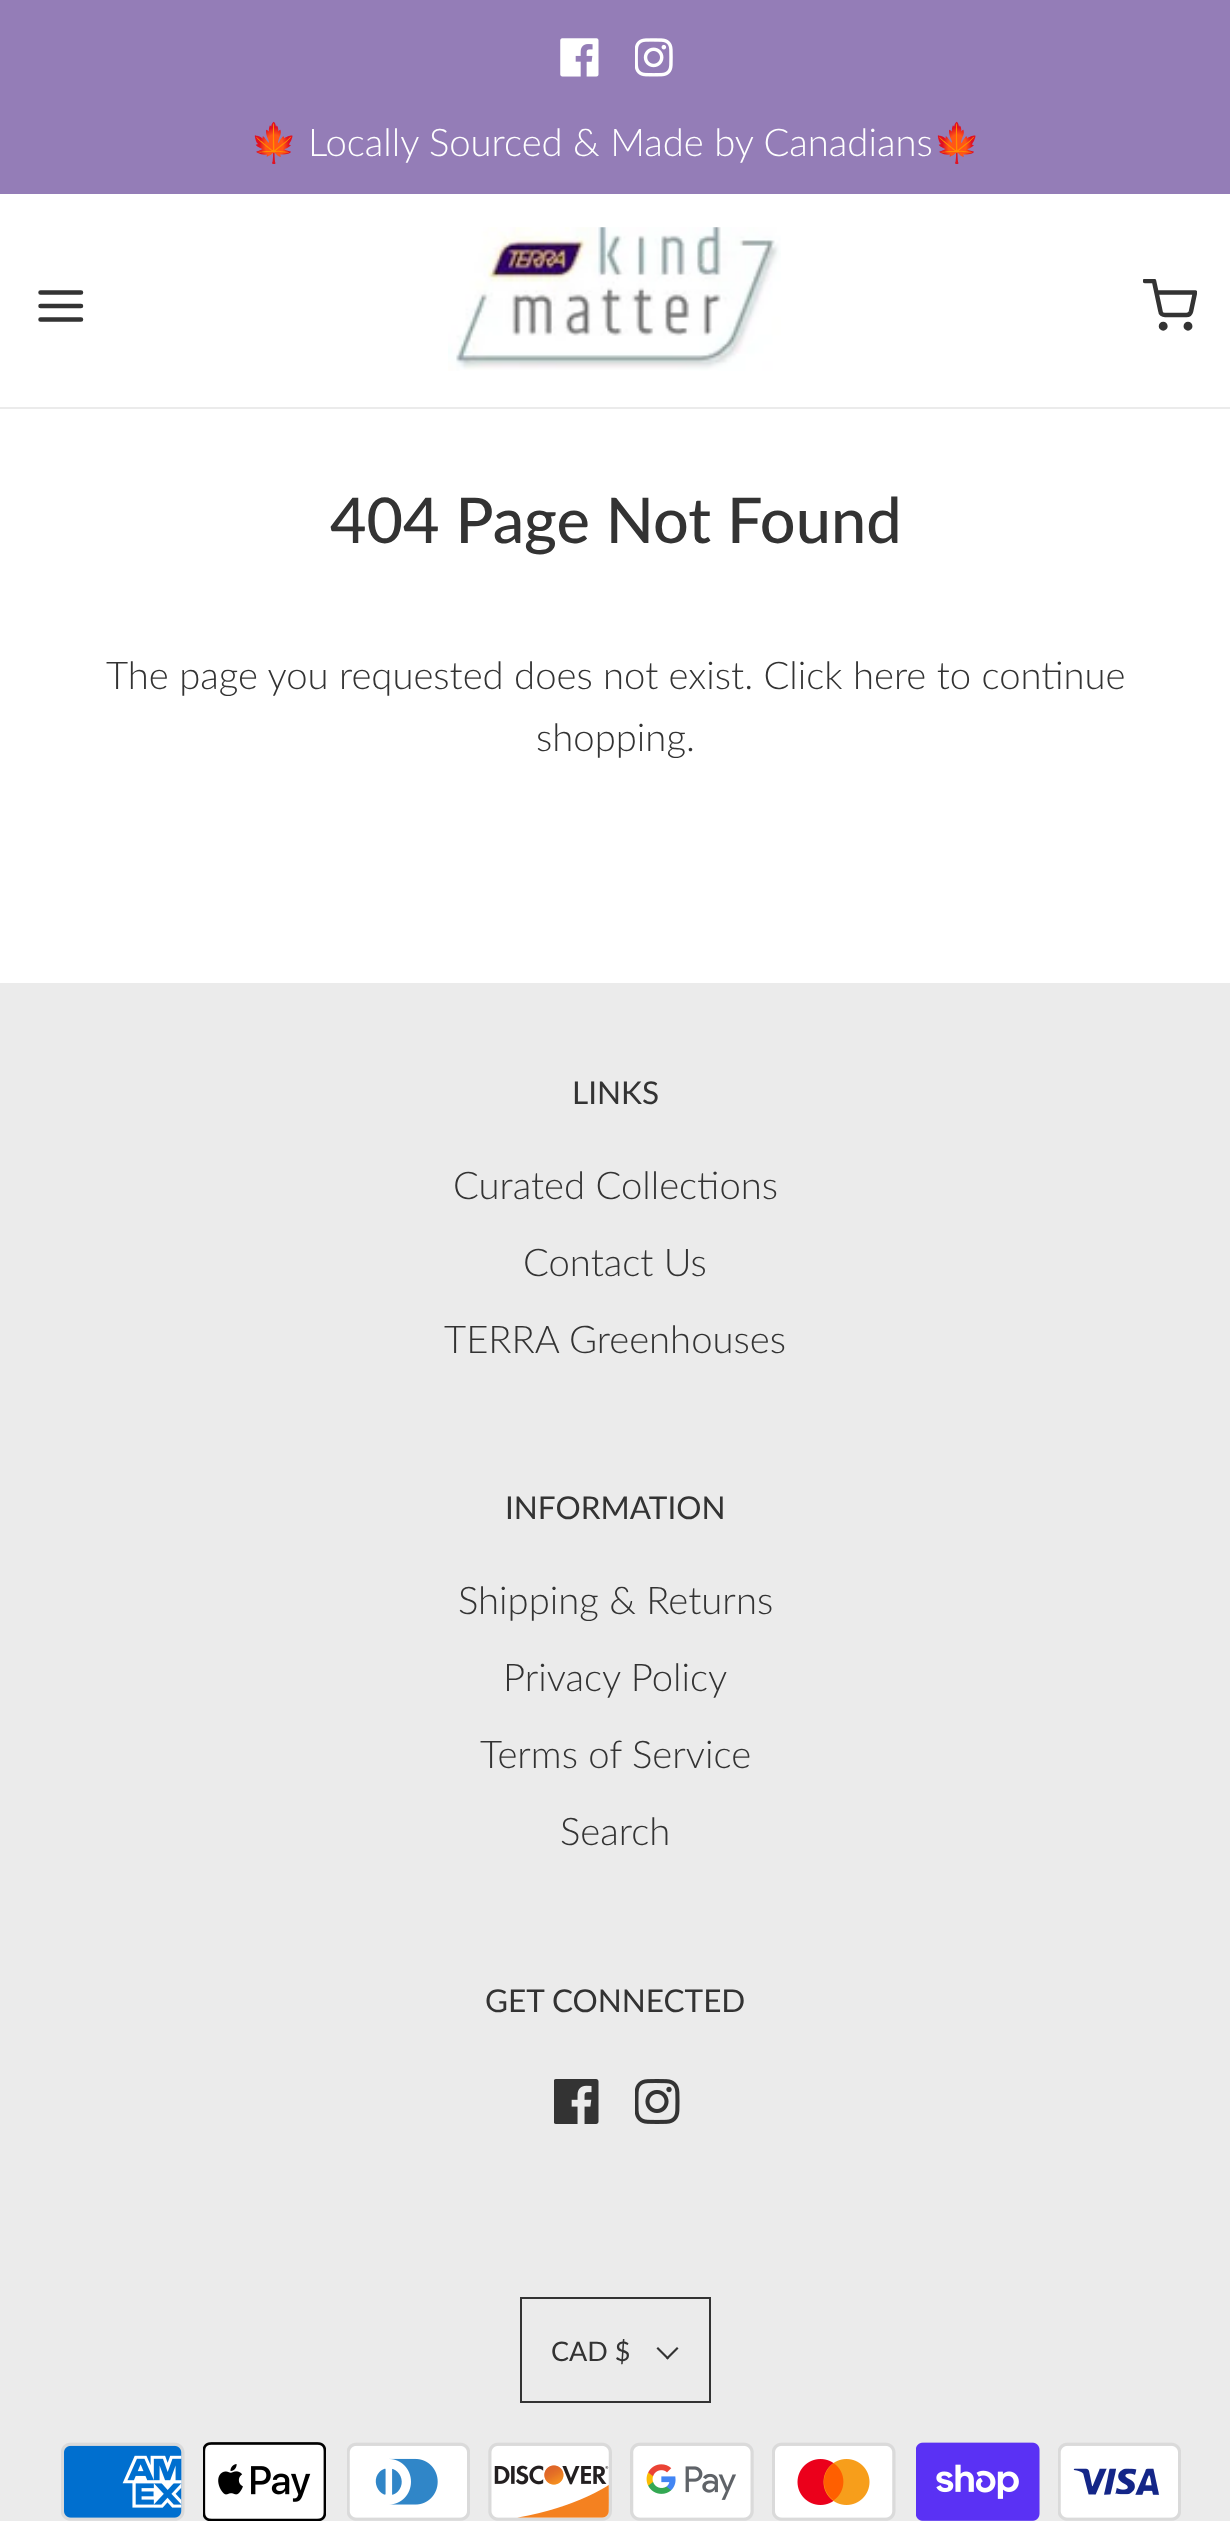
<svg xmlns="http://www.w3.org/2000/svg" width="1230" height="2521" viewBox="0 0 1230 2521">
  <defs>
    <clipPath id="clip1"><rect x="1143" y="279" width="54" height="54"/></clipPath>
  </defs>
  <rect width="100%" height="100%" fill="#ffffff"/>
  <rect x="0" y="0" width="1230" height="194" fill="#947db7"/>
  <image x="560" y="38" width="39" height="39" href="img1.png"/>
  <image x="635" y="38" width="38" height="39" href="img2.png"/>
  <text x="250" y="156" font-family="Noto Color Emoji" font-size="38.25" fill="#ffffff">🍁</text>
  <text x="308" y="156" font-family="Lato" font-size="38.25" font-weight="300" fill="#ffffff">Locally Sourced &amp; Made by Canadians</text>
  <text x="933" y="156" font-family="Noto Color Emoji" font-size="38.25" fill="#ffffff">🍁</text>
  <rect x="0" y="407" width="1230" height="2" fill="#ebebeb"/>
  <path d="M40.5 306H81M40.5 292.5H81M40.5 319.5H81" fill="none" stroke="#333333" stroke-width="4.5" stroke-linecap="round" stroke-linejoin="round"/>
  <image x="448" y="227" width="333" height="144" href="img3.png"/>
  <g clip-path="url(#clip1)">
    <path d="M1145 281H1154L1160.5 311.5C1160.5 313.5 1162.5 315 1165 315H1186.5C1189 315 1190.5 313.5 1191 311.5L1195 292.5H1156.5" fill="none" stroke="#333333" stroke-width="4.5" stroke-linecap="round" stroke-linejoin="round"/>
  </g>
  <circle cx="1163.2" cy="326.2" r="2.2" fill="none" stroke="#333333" stroke-width="4.5"/>
  <circle cx="1188" cy="326.2" r="2.2" fill="none" stroke="#333333" stroke-width="4.5"/>
  <text x="330" y="543" font-family="Lato" font-size="63" font-weight="500" fill="#333333">404 Page Not Found</text>
  <text x="106" y="689" font-family="Lato" font-size="38.25" font-weight="300" fill="#333333">The page you requested does not exist. Click here to continue</text>
  <text x="536" y="751" font-family="Lato" font-size="38.25" font-weight="300" fill="#333333">shopping.</text>
  <rect x="0" y="983" width="1230" height="1538" fill="#ebebeb"/>
  <text x="572" y="1104" font-family="Lato" font-size="31.5" fill="#333333">LINKS</text>
  <text x="453" y="1199" font-family="Lato" font-size="38.25" font-weight="300" fill="#333333">Curated Collections</text>
  <text x="523" y="1276" font-family="Lato" font-size="38.25" font-weight="300" fill="#333333">Contact Us</text>
  <text x="444" y="1353" font-family="Lato" font-size="38.25" font-weight="300" fill="#333333">TERRA Greenhouses</text>
  <text x="505" y="1519" font-family="Lato" font-size="31.5" fill="#333333">INFORMATION</text>
  <text x="458" y="1614" font-family="Lato" font-size="38.25" font-weight="300" fill="#333333">Shipping &amp; Returns</text>
  <text x="503" y="1691" font-family="Lato" font-size="38.25" font-weight="300" fill="#333333">Privacy Policy</text>
  <text x="480" y="1768" font-family="Lato" font-size="38.25" font-weight="300" fill="#333333">Terms of Service</text>
  <text x="560" y="1845" font-family="Lato" font-size="38.25" font-weight="300" fill="#333333">Search</text>
  <text x="485" y="2012" font-family="Lato" font-size="31.5" fill="#333333">GET CONNECTED</text>
  <image x="554" y="2079" width="45" height="45" href="img4.png"/>
  <image x="635" y="2079" width="45" height="45" href="img5.png"/>
  <rect x="521" y="2298" width="189" height="104" fill="none" stroke="#333333" stroke-width="2"/>
  <text x="551" y="2361" font-family="Lato" font-size="27" fill="#333333">CAD $</text>
  <path d="M677 2347L678.5 2348.5L667.5 2359.5L666 2358Z" fill="#333333"/>
  <path d="M658 2347L669 2358L667.5 2359.5L656.5 2348.5Z" fill="#333333"/>
  <image x="61" y="2442" width="124" height="79" href="img6.png"/>
  <image x="203" y="2442" width="123" height="79" href="img7.png"/>
  <image x="347" y="2442" width="123" height="79" href="img8.png"/>
  <image x="488" y="2442" width="124" height="79" href="img9.png"/>
  <image x="630" y="2442" width="124" height="79" href="img10.png"/>
  <image x="772" y="2442" width="124" height="79" href="img11.png"/>
  <image x="916" y="2442" width="124" height="79" href="img12.png"/>
  <image x="1058" y="2442" width="123" height="79" href="img13.png"/>
</svg>
